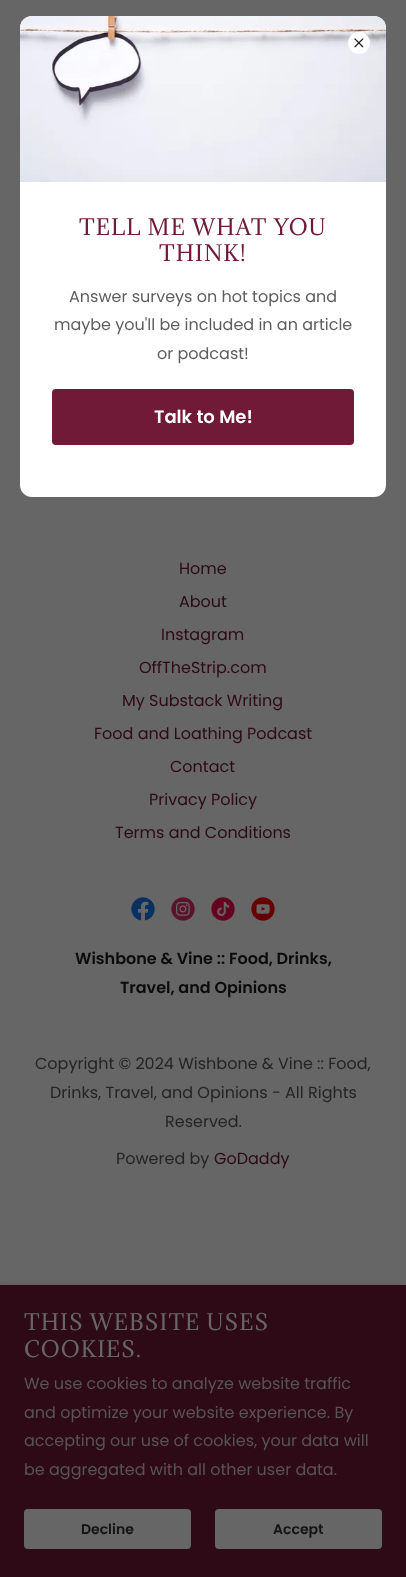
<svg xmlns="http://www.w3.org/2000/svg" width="406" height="1577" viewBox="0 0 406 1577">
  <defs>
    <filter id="blur1" x="-50%" y="-200%" width="200%" height="500%"><feGaussianBlur stdDeviation="3"/></filter>
  </defs>
  <rect width="100%" height="100%" fill="#666666"/>
  <rect x="20" y="16" width="366" height="481" rx="12" fill="#ffffff"/>
  <image x="20" y="16" width="366" height="166" href="img2.png"/>
  <circle cx="359" cy="43" r="11" fill="#ffffff"/>
  <image x="354" y="38" width="10" height="10" href="img1.png"/>
  <text x="79" y="235" font-family="Adamina" font-size="21" letter-spacing="1" fill="#701a38">TELL ME WHAT YOU</text>
  <text x="159" y="261" font-family="Adamina" font-size="21" letter-spacing="1" fill="#701a38">THINK!</text>
  <text x="69" y="302" font-family="Poppins" font-size="16" fill="#5e5e5e">Answer surveys on hot topics and</text>
  <text x="54" y="330" font-family="Poppins" font-size="16" fill="#5e5e5e">maybe you'll be included in an article</text>
  <text x="157" y="359" font-family="Poppins" font-size="16" fill="#5e5e5e">or podcast!</text>
  <rect x="52" y="389" width="302" height="56" rx="4" fill="#701a38"/>
  <text x="154" y="423" font-family="Poppins" font-size="18" font-weight="600" fill="#ffffff">Talk to Me!</text>
  <text x="179" y="574" font-family="Poppins" font-size="16" fill="#2d0a16">Home</text>
  <text x="179" y="607" font-family="Poppins" font-size="16" fill="#2d0a16">About</text>
  <text x="161" y="640" font-family="Poppins" font-size="16" fill="#2d0a16">Instagram</text>
  <text x="139" y="673" font-family="Poppins" font-size="16" fill="#2d0a16">OffTheStrip.com</text>
  <text x="122" y="706" font-family="Poppins" font-size="16" fill="#2d0a16">My Substack Writing</text>
  <text x="94" y="739" font-family="Poppins" font-size="16" fill="#2d0a16">Food and Loathing Podcast</text>
  <text x="170" y="772" font-family="Poppins" font-size="16" fill="#2d0a16">Contact</text>
  <text x="149" y="805" font-family="Poppins" font-size="16" fill="#2d0a16">Privacy Policy</text>
  <text x="115" y="838" font-family="Poppins" font-size="16" fill="#2d0a16">Terms and Conditions</text>
  <image x="131" y="897" width="24" height="24" href="img3.png"/>
  <image x="171" y="897" width="24" height="24" href="img4.png"/>
  <image x="211" y="897" width="24" height="24" href="img5.png"/>
  <image x="251" y="897" width="24" height="24" href="img6.png"/>
  <text x="75" y="964" font-family="Poppins" font-size="16" font-weight="600" fill="#0b0b0b">Wishbone &amp; Vine :: Food, Drinks,</text>
  <text x="120" y="993" font-family="Poppins" font-size="16" font-weight="600" fill="#0b0b0b">Travel, and Opinions</text>
  <text x="35" y="1069" font-family="Poppins" font-size="16" fill="#242424">Copyright © 2024 Wishbone &amp; Vine :: Food,</text>
  <text x="50" y="1098" font-family="Poppins" font-size="16" fill="#242424">Drinks, Travel, and Opinions - All Rights</text>
  <text x="165" y="1127" font-family="Poppins" font-size="16" fill="#242424">Reserved.</text>
  <text x="116" y="1164" font-family="Poppins" font-size="16" fill="#242424">Powered by</text>
  <text x="214" y="1164" font-family="Poppins" font-size="16" fill="#2d0a16">GoDaddy</text>
  <rect x="0" y="1287" width="406" height="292" fill="#000000" fill-opacity="0.3" filter="url(#blur1)"/>
  <rect x="0" y="1285" width="406" height="292" fill="#2d0a16"/>
  <text x="24" y="1330" font-family="Adamina" font-size="21" letter-spacing="1" fill="#666666">THIS WEBSITE USES</text>
  <text x="24" y="1357" font-family="Adamina" font-size="21" letter-spacing="1" fill="#666666">COOKIES.</text>
  <text x="24" y="1389" font-family="Poppins" font-size="16" fill="#585455">We use cookies to analyze website traffic</text>
  <text x="24" y="1418" font-family="Poppins" font-size="16" fill="#585455">and optimize your website experience. By</text>
  <text x="24" y="1446" font-family="Poppins" font-size="16" fill="#585455">accepting our use of cookies, your data will</text>
  <text x="24" y="1475" font-family="Poppins" font-size="16" fill="#585455">be aggregated with all other user data.</text>
  <rect x="24" y="1509" width="167" height="40" rx="4" fill="#666666"/>
  <text x="81" y="1534" font-family="Poppins" font-size="14" font-weight="600" fill="#131313">Decline</text>
  <rect x="215" y="1509" width="167" height="40" rx="4" fill="#666666"/>
  <text x="273" y="1534" font-family="Poppins" font-size="14" font-weight="600" fill="#131313">Accept</text>
</svg>
